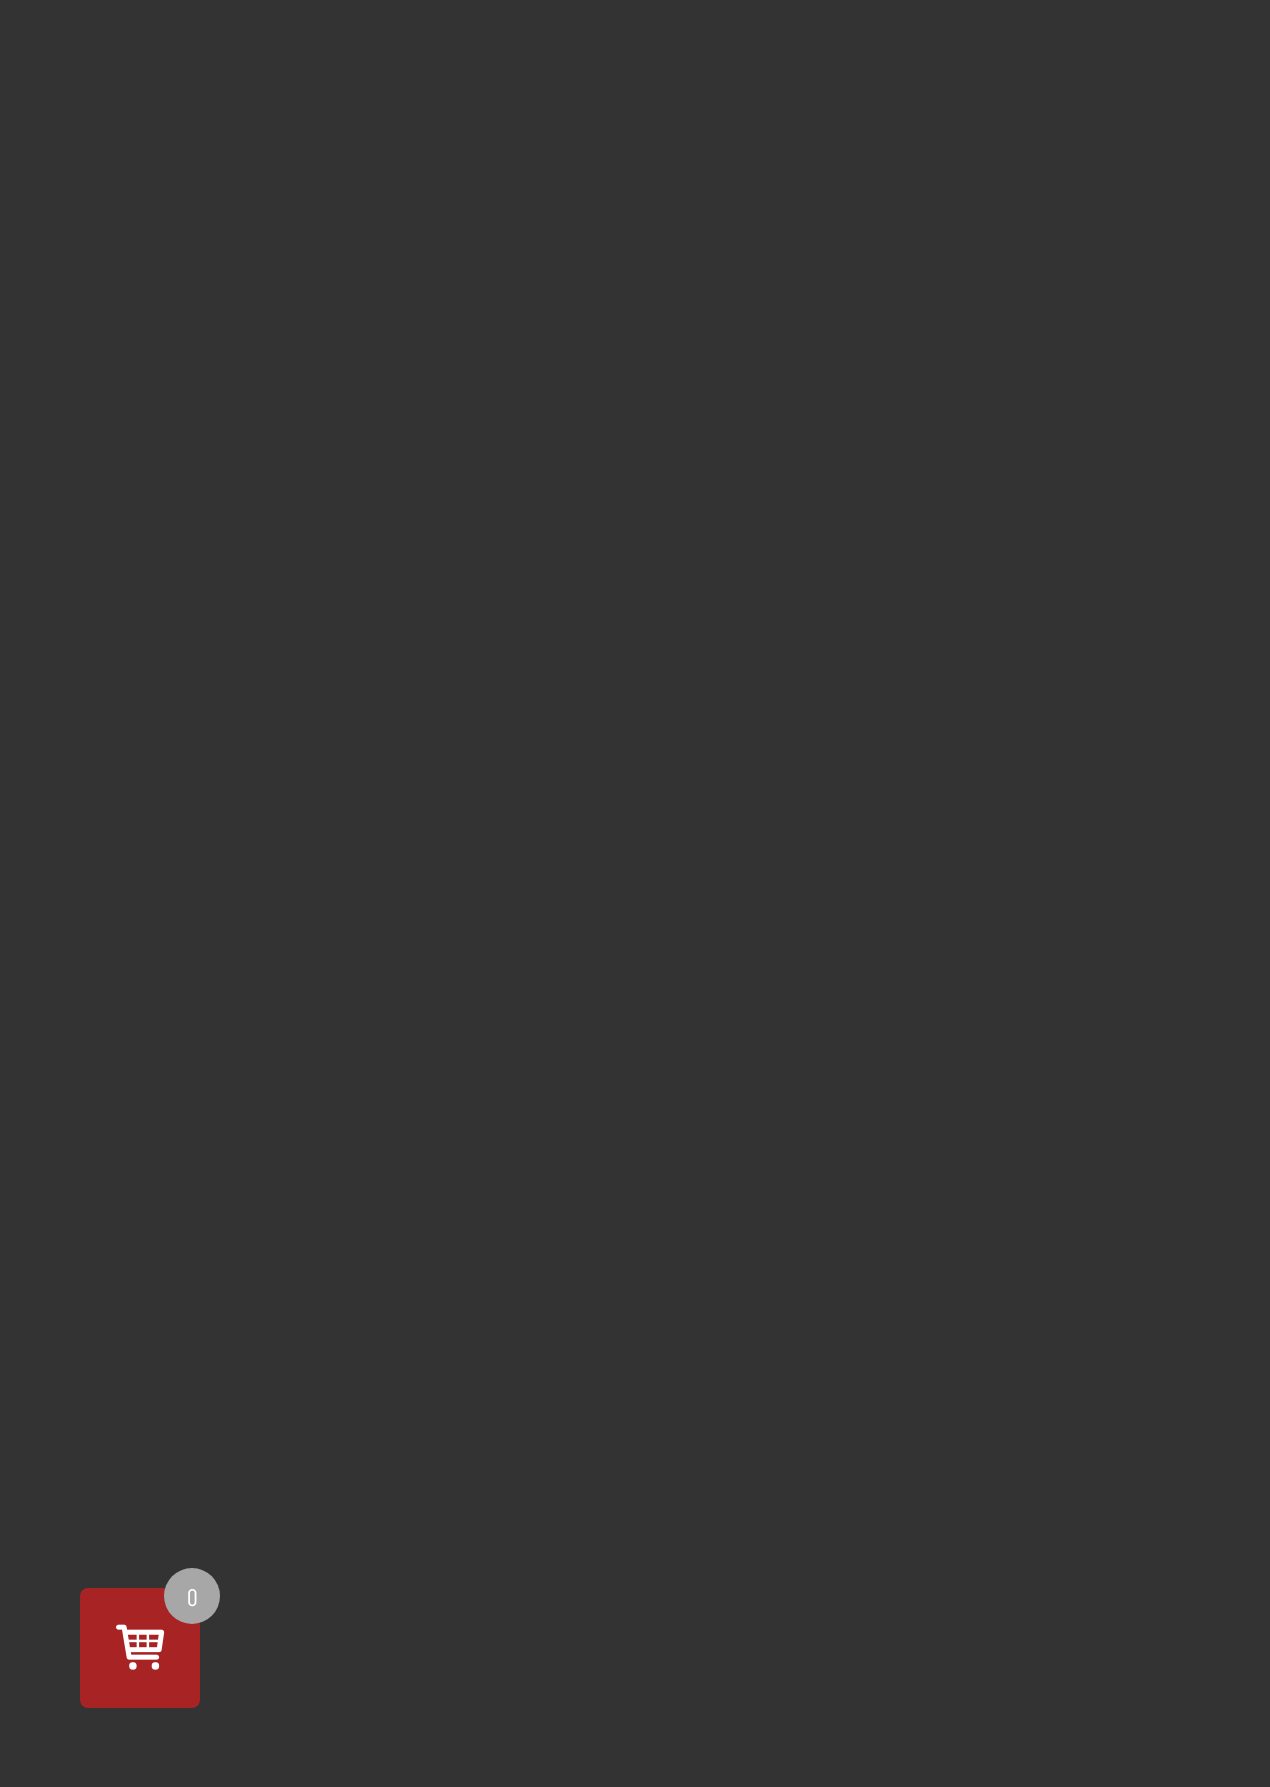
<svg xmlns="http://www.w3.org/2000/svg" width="1270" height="1787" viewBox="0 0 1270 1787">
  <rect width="100%" height="100%" fill="#333333"/>
  <rect x="80" y="1588" width="120" height="120" rx="8" fill="#a82323"/>
  <circle cx="192" cy="1596" r="28" fill="#a7a7a7"/>
  <text x="187" y="1606" font-family="Barlow Condensed" font-size="24" fill="#ffffff">0</text>
  <image x="116" y="1624" width="49" height="46" href="img1.png"/>
</svg>
